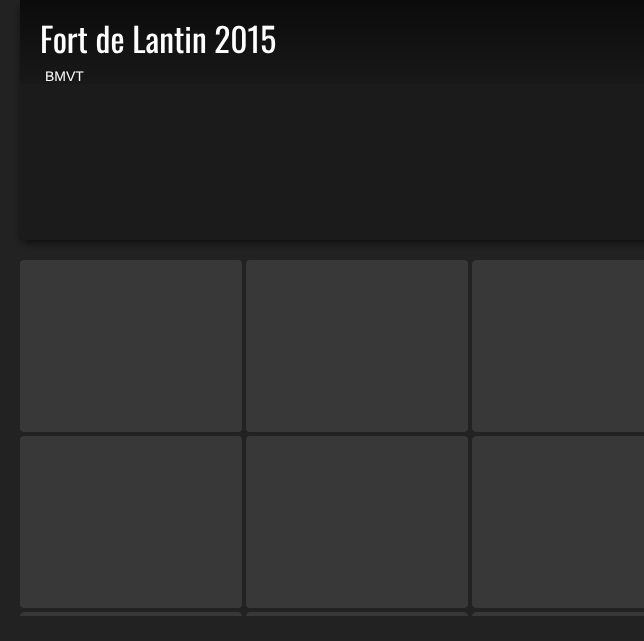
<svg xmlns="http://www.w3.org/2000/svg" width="644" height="641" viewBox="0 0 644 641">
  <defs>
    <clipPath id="clip1"><path d="M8 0H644V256H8ZM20 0H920V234C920 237.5 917.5 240 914 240H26C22.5 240 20 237.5 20 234Z" clip-rule="evenodd"/></clipPath>
    <filter id="blur1" x="-50%" y="-200%" width="200%" height="500%"><feGaussianBlur stdDeviation="4"/></filter>
    <linearGradient id="g1" gradientUnits="userSpaceOnUse" x1="470" y1="0" x2="470" y2="99"><stop offset="0" stop-color="#0b0b0b"/><stop offset="1" stop-color="#1b1b1b"/></linearGradient>
  </defs>
  <rect width="100%" height="100%" fill="#222222"/>
  <g clip-path="url(#clip1)">
    <rect x="21" y="3" width="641" height="240" rx="6" fill="#000000" fill-opacity="0.6" filter="url(#blur1)"/>
  </g>
  <path d="M20 0H644V240H26C22.5 240 20 237.5 20 234Z" fill="#000000" fill-opacity="0.2"/>
  <rect x="20" y="0" width="624" height="84" fill="url(#g1)"/>
  <text x="40" y="53" font-family="Oswald" font-size="33.5" fill="#ffffff">Fort de Lantin 2015</text>
  <text x="45" y="81" font-family="Liberation Sans" font-size="14" fill="#ffffff">BMVT</text>
  <rect x="20" y="260" width="222" height="172" rx="4" fill="#ffffff" fill-opacity="0.1"/>
  <rect x="246" y="260" width="222" height="172" rx="4" fill="#ffffff" fill-opacity="0.1"/>
  <path d="M476 260H644V432H476C474 432 472 430 472 428V264C472 262 474 260 476 260Z" fill="#ffffff" fill-opacity="0.1"/>
  <rect x="20" y="436" width="222" height="172" rx="4" fill="#ffffff" fill-opacity="0.1"/>
  <rect x="246" y="436" width="222" height="172" rx="4" fill="#ffffff" fill-opacity="0.1"/>
  <path d="M476 436H644V608H476C474 608 472 606 472 604V440C472 438 474 436 476 436Z" fill="#ffffff" fill-opacity="0.1"/>
  <path d="M24 612H238C240 612 242 614 242 616H20C20 614 22 612 24 612Z" fill="#383838"/>
  <path d="M250 612H464C466 612 468 614 468 616H246C246 614 248 612 250 612Z" fill="#383838"/>
  <path d="M476 612H644V616H472C472 614 474 612 476 612Z" fill="#383838"/>
</svg>
